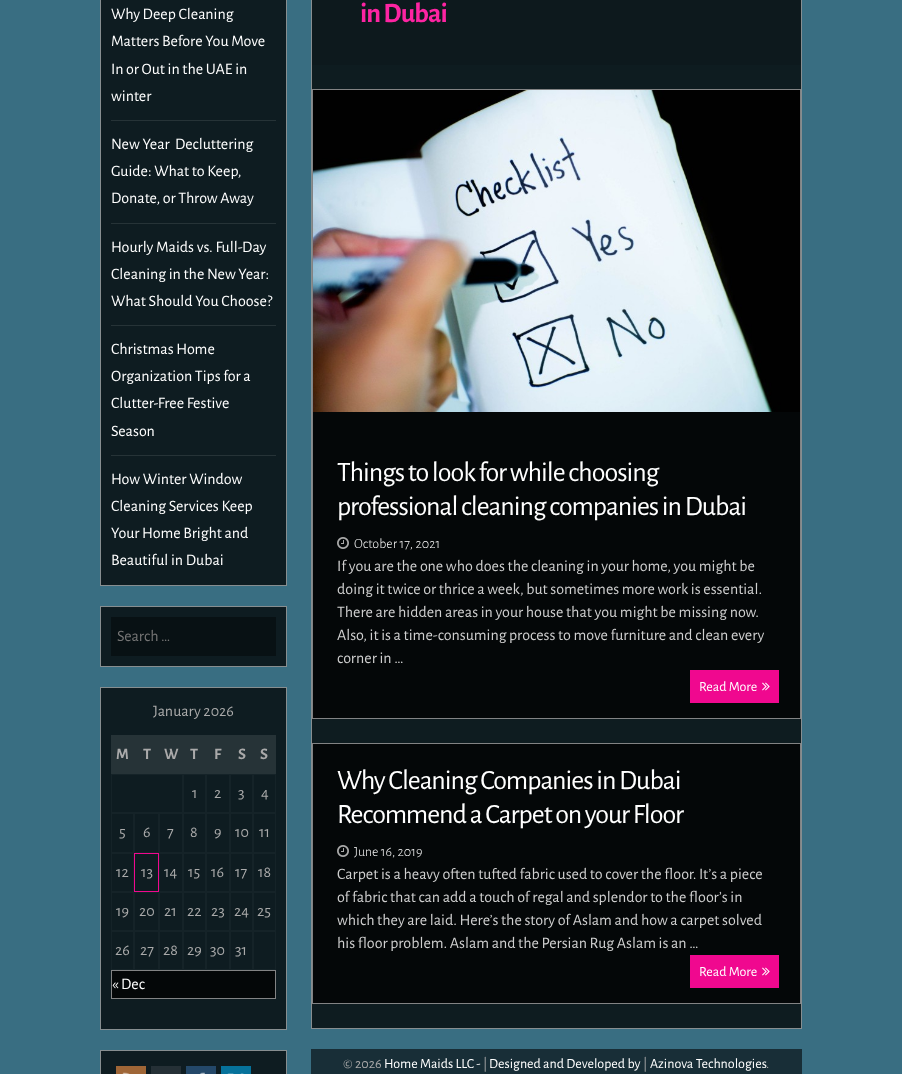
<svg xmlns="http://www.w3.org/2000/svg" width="902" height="1074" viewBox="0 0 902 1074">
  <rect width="100%" height="100%" fill="#396e82"/>
  <rect x="100.5" y="-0.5" width="186" height="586" fill="#0e1c21" stroke="#878e90"/>
  <rect x="111" y="120" width="165" height="1" fill="#263337"/>
  <text x="111" y="19" font-family="Alegreya Sans" font-size="16" fill="#ffffff">Why Deep Cleaning</text>
  <text x="111" y="46" font-family="Alegreya Sans" font-size="16" fill="#ffffff">Matters Before You Move</text>
  <text x="111" y="74" font-family="Alegreya Sans" font-size="16" fill="#ffffff">In or Out in the UAE in</text>
  <text x="111" y="101" font-family="Alegreya Sans" font-size="16" fill="#ffffff">winter</text>
  <rect x="111" y="223" width="165" height="1" fill="#263337"/>
  <text x="111" y="149" font-family="Alegreya Sans" font-size="16" fill="#ffffff" xml:space="preserve">New Year  Decluttering</text>
  <text x="111" y="176" font-family="Alegreya Sans" font-size="16" fill="#ffffff">Guide: What to Keep,</text>
  <text x="111" y="203" font-family="Alegreya Sans" font-size="16" fill="#ffffff">Donate, or Throw Away</text>
  <rect x="111" y="325" width="165" height="1" fill="#263337"/>
  <text x="111" y="252" font-family="Alegreya Sans" font-size="16" fill="#ffffff">Hourly Maids vs. Full-Day</text>
  <text x="111" y="279" font-family="Alegreya Sans" font-size="16" fill="#ffffff">Cleaning in the New Year:</text>
  <text x="111" y="306" font-family="Alegreya Sans" font-size="16" fill="#ffffff">What Should You Choose?</text>
  <rect x="111" y="455" width="165" height="1" fill="#263337"/>
  <text x="111" y="354" font-family="Alegreya Sans" font-size="16" fill="#ffffff">Christmas Home</text>
  <text x="111" y="381" font-family="Alegreya Sans" font-size="16" fill="#ffffff">Organization Tips for a</text>
  <text x="111" y="408" font-family="Alegreya Sans" font-size="16" fill="#ffffff">Clutter-Free Festive</text>
  <text x="111" y="436" font-family="Alegreya Sans" font-size="16" fill="#ffffff">Season</text>
  <text x="111" y="484" font-family="Alegreya Sans" font-size="16" fill="#ffffff">How Winter Window</text>
  <text x="111" y="511" font-family="Alegreya Sans" font-size="16" fill="#ffffff">Cleaning Services Keep</text>
  <text x="111" y="538" font-family="Alegreya Sans" font-size="16" fill="#ffffff">Your Home Bright and</text>
  <text x="111" y="565" font-family="Alegreya Sans" font-size="16" fill="#ffffff">Beautiful in Dubai</text>
  <rect x="100.5" y="606.5" width="186" height="60" fill="#0e1c21" stroke="#878e90"/>
  <rect x="111" y="617" width="165" height="39" fill="#081114"/>
  <text x="117" y="641" font-family="Alegreya Sans" font-size="16" fill="#757575">Search …</text>
  <rect x="100.5" y="687.5" width="186" height="342" fill="#0e1c21" stroke="#878e90"/>
  <text x="153" y="716" font-family="Alegreya Sans" font-size="16" fill="#aaaaaa">January 2026</text>
  <rect x="111" y="735" width="165" height="39" fill="#263337"/>
  <text x="116" y="759" font-family="Alegreya Sans" font-size="16" font-weight="bold" fill="#aaaaaa">M</text>
  <text x="143" y="759" font-family="Alegreya Sans" font-size="16" font-weight="bold" fill="#aaaaaa">T</text>
  <text x="164" y="759" font-family="Alegreya Sans" font-size="16" font-weight="bold" fill="#aaaaaa">W</text>
  <text x="190" y="759" font-family="Alegreya Sans" font-size="16" font-weight="bold" fill="#aaaaaa">T</text>
  <text x="214" y="759" font-family="Alegreya Sans" font-size="16" font-weight="bold" fill="#aaaaaa">F</text>
  <text x="238" y="759" font-family="Alegreya Sans" font-size="16" font-weight="bold" fill="#aaaaaa">S</text>
  <text x="260" y="759" font-family="Alegreya Sans" font-size="16" font-weight="bold" fill="#aaaaaa">S</text>
  <rect x="111.5" y="774.5" width="71" height="38" fill="none" stroke="#152328"/>
  <rect x="183.5" y="774.5" width="22" height="38" fill="none" stroke="#152328"/>
  <text x="192" y="798" font-family="Alegreya Sans" font-size="16" fill="#aaaaaa">1</text>
  <rect x="206.5" y="774.5" width="23" height="38" fill="none" stroke="#152328"/>
  <text x="214" y="798" font-family="Alegreya Sans" font-size="16" fill="#aaaaaa">2</text>
  <rect x="230.5" y="774.5" width="22" height="38" fill="none" stroke="#152328"/>
  <text x="238" y="798" font-family="Alegreya Sans" font-size="16" fill="#aaaaaa">3</text>
  <rect x="253.5" y="774.5" width="22" height="38" fill="none" stroke="#152328"/>
  <text x="261" y="798" font-family="Alegreya Sans" font-size="16" fill="#aaaaaa">4</text>
  <rect x="111.5" y="813.5" width="22" height="39" fill="none" stroke="#152328"/>
  <text x="119" y="837" font-family="Alegreya Sans" font-size="16" fill="#aaaaaa">5</text>
  <rect x="134.5" y="813.5" width="24" height="39" fill="none" stroke="#152328"/>
  <text x="143" y="837" font-family="Alegreya Sans" font-size="16" fill="#aaaaaa">6</text>
  <rect x="159.5" y="813.5" width="23" height="39" fill="none" stroke="#152328"/>
  <text x="167" y="837" font-family="Alegreya Sans" font-size="16" fill="#aaaaaa">7</text>
  <rect x="183.5" y="813.5" width="22" height="39" fill="none" stroke="#152328"/>
  <text x="190" y="837" font-family="Alegreya Sans" font-size="16" fill="#aaaaaa">8</text>
  <rect x="206.5" y="813.5" width="23" height="39" fill="none" stroke="#152328"/>
  <text x="214" y="837" font-family="Alegreya Sans" font-size="16" fill="#aaaaaa">9</text>
  <rect x="230.5" y="813.5" width="22" height="39" fill="none" stroke="#152328"/>
  <text x="235" y="837" font-family="Alegreya Sans" font-size="16" fill="#aaaaaa">10</text>
  <rect x="253.5" y="813.5" width="22" height="39" fill="none" stroke="#152328"/>
  <text x="259" y="837" font-family="Alegreya Sans" font-size="16" fill="#aaaaaa">11</text>
  <rect x="111.5" y="853.5" width="22" height="38" fill="none" stroke="#152328"/>
  <text x="116" y="877" font-family="Alegreya Sans" font-size="16" fill="#aaaaaa">12</text>
  <rect x="134.5" y="853.5" width="24" height="38" fill="none" stroke="#f0088f"/>
  <text x="141" y="877" font-family="Alegreya Sans" font-size="16" fill="#aaaaaa">13</text>
  <rect x="159.5" y="853.5" width="23" height="38" fill="none" stroke="#152328"/>
  <text x="164" y="877" font-family="Alegreya Sans" font-size="16" fill="#aaaaaa">14</text>
  <rect x="183.5" y="853.5" width="22" height="38" fill="none" stroke="#152328"/>
  <text x="188" y="877" font-family="Alegreya Sans" font-size="16" fill="#aaaaaa">15</text>
  <rect x="206.5" y="853.5" width="23" height="38" fill="none" stroke="#152328"/>
  <text x="211" y="877" font-family="Alegreya Sans" font-size="16" fill="#aaaaaa">16</text>
  <rect x="230.5" y="853.5" width="22" height="38" fill="none" stroke="#152328"/>
  <text x="235" y="877" font-family="Alegreya Sans" font-size="16" fill="#aaaaaa">17</text>
  <rect x="253.5" y="853.5" width="22" height="38" fill="none" stroke="#152328"/>
  <text x="258" y="877" font-family="Alegreya Sans" font-size="16" fill="#aaaaaa">18</text>
  <rect x="111.5" y="892.5" width="22" height="38" fill="none" stroke="#152328"/>
  <text x="116" y="916" font-family="Alegreya Sans" font-size="16" fill="#aaaaaa">19</text>
  <rect x="134.5" y="892.5" width="24" height="38" fill="none" stroke="#152328"/>
  <text x="139" y="916" font-family="Alegreya Sans" font-size="16" fill="#aaaaaa">20</text>
  <rect x="159.5" y="892.5" width="23" height="38" fill="none" stroke="#152328"/>
  <text x="164" y="916" font-family="Alegreya Sans" font-size="16" fill="#aaaaaa">21</text>
  <rect x="183.5" y="892.5" width="22" height="38" fill="none" stroke="#152328"/>
  <text x="187" y="916" font-family="Alegreya Sans" font-size="16" fill="#aaaaaa">22</text>
  <rect x="206.5" y="892.5" width="23" height="38" fill="none" stroke="#152328"/>
  <text x="211" y="916" font-family="Alegreya Sans" font-size="16" fill="#aaaaaa">23</text>
  <rect x="230.5" y="892.5" width="22" height="38" fill="none" stroke="#152328"/>
  <text x="234" y="916" font-family="Alegreya Sans" font-size="16" fill="#aaaaaa">24</text>
  <rect x="253.5" y="892.5" width="22" height="38" fill="none" stroke="#152328"/>
  <text x="257" y="916" font-family="Alegreya Sans" font-size="16" fill="#aaaaaa">25</text>
  <rect x="111.5" y="931.5" width="22" height="38" fill="none" stroke="#152328"/>
  <text x="115" y="955" font-family="Alegreya Sans" font-size="16" fill="#aaaaaa">26</text>
  <rect x="134.5" y="931.5" width="24" height="38" fill="none" stroke="#152328"/>
  <text x="140" y="955" font-family="Alegreya Sans" font-size="16" fill="#aaaaaa">27</text>
  <rect x="159.5" y="931.5" width="23" height="38" fill="none" stroke="#152328"/>
  <text x="163" y="955" font-family="Alegreya Sans" font-size="16" fill="#aaaaaa">28</text>
  <rect x="183.5" y="931.5" width="22" height="38" fill="none" stroke="#152328"/>
  <text x="187" y="955" font-family="Alegreya Sans" font-size="16" fill="#aaaaaa">29</text>
  <rect x="206.5" y="931.5" width="23" height="38" fill="none" stroke="#152328"/>
  <text x="210" y="955" font-family="Alegreya Sans" font-size="16" fill="#aaaaaa">30</text>
  <rect x="230.5" y="931.5" width="22" height="38" fill="none" stroke="#152328"/>
  <text x="235" y="955" font-family="Alegreya Sans" font-size="16" fill="#aaaaaa">31</text>
  <rect x="253.5" y="931.5" width="22" height="38" fill="none" stroke="#152328"/>
  <rect x="111.5" y="970.5" width="164" height="28" fill="#040708" stroke="#828384"/>
  <text x="112" y="989" font-family="Alegreya Sans" font-size="16" fill="#ffffff">« Dec</text>
  <rect x="100.5" y="1050.5" width="186" height="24" fill="#0e1c21" stroke="#878e90"/>
  <rect x="116" y="1066" width="30" height="8" fill="#9f6637"/>
  <image x="122" y="1072" width="8" height="2" href="img1.png"/>
  <rect x="151" y="1066" width="30" height="8" fill="#253036"/>
  <rect x="186" y="1066" width="30" height="8" fill="#244869"/>
  <image x="200" y="1072" width="5" height="2" href="img2.png"/>
  <rect x="221" y="1066" width="30" height="8" fill="#06729b"/>
  <image x="227" y="1073" width="17" height="1" href="img3.png"/>
  <rect x="312" y="65" width="489" height="963" fill="#0e1c20"/>
  <rect x="311.5" y="-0.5" width="490" height="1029" fill="none" stroke="#878e90"/>
  <rect x="312" y="0" width="489" height="65" fill="#0d191d"/>
  <text x="360" y="22" font-family="Alegreya Sans" font-size="28" font-weight="bold" letter-spacing="-1" fill="#fd24a2">in Dubai</text>
  <rect x="313" y="412" width="487" height="306" fill="#040708"/>
  <rect x="312.5" y="89.5" width="488" height="629" fill="none" stroke="#828384"/>
  <image x="313" y="90" width="487" height="322" href="img4.png"/>
  <text x="337" y="481" font-family="Alegreya Sans" font-size="28" letter-spacing="-1" fill="#ffffff">Things to look for while choosing</text>
  <text x="337" y="515" font-family="Alegreya Sans" font-size="28" letter-spacing="-1" fill="#ffffff">professional cleaning companies in Dubai</text>
  <image x="337" y="537" width="12" height="12" href="img5.png"/>
  <text x="354" y="548" font-family="Alegreya Sans" font-size="14" font-weight="300" fill="#ffffff">October 17, 2021</text>
  <text x="337" y="571" font-family="Alegreya Sans" font-size="16" fill="#cfcfcf">If you are the one who does the cleaning in your home, you might be</text>
  <text x="337" y="594" font-family="Alegreya Sans" font-size="16" fill="#cfcfcf">doing it twice or thrice a week, but sometimes more work is essential.</text>
  <text x="337" y="617" font-family="Alegreya Sans" font-size="16" fill="#cfcfcf">There are hidden areas in your house that you might be missing now.</text>
  <text x="337" y="640" font-family="Alegreya Sans" font-size="16" fill="#cfcfcf">Also, it is a time-consuming process to move furniture and clean every</text>
  <text x="337" y="663" font-family="Alegreya Sans" font-size="16" fill="#cfcfcf">corner in …</text>
  <rect x="690" y="670" width="89" height="33" fill="#f0088f"/>
  <text x="699" y="691" font-family="Alegreya Sans" font-size="14" fill="#ffffff">Read More</text>
  <image x="762" y="682" width="8" height="9" href="img6.png"/>
  <rect x="312.5" y="743.5" width="488" height="260" fill="#040708" stroke="#828384"/>
  <text x="337" y="789" font-family="Alegreya Sans" font-size="28" letter-spacing="-1" fill="#ffffff">Why Cleaning Companies in Dubai</text>
  <text x="337" y="823" font-family="Alegreya Sans" font-size="28" letter-spacing="-1" fill="#ffffff">Recommend a Carpet on your Floor</text>
  <image x="337" y="845" width="12" height="12" href="img5.png"/>
  <text x="354" y="856" font-family="Alegreya Sans" font-size="14" font-weight="300" fill="#ffffff">June 16, 2019</text>
  <text x="337" y="879" font-family="Alegreya Sans" font-size="16" fill="#cfcfcf">Carpet is a heavy often tufted fabric used to cover the floor. It’s a piece</text>
  <text x="337" y="902" font-family="Alegreya Sans" font-size="16" fill="#cfcfcf">of fabric that can add a touch of regal and splendor to the floor’s in</text>
  <text x="337" y="925" font-family="Alegreya Sans" font-size="16" fill="#cfcfcf">which they are laid. Here’s the story of Aslam and how a carpet solved</text>
  <text x="337" y="948" font-family="Alegreya Sans" font-size="16" fill="#cfcfcf">his floor problem. Aslam and the Persian Rug Aslam is an …</text>
  <rect x="690" y="955" width="89" height="33" fill="#f0088f"/>
  <text x="699" y="976" font-family="Alegreya Sans" font-size="14" fill="#ffffff">Read More</text>
  <image x="762" y="967" width="8" height="9" href="img6.png"/>
  <rect x="311" y="1049" width="491" height="25" fill="#182e37"/>
  <text x="343" y="1068" font-family="Alegreya Sans" font-size="14" fill="#aaaaaa">© 2026</text>
  <text x="384" y="1068" font-family="Alegreya Sans" font-size="14" fill="#ffffff">Home Maids LLC -</text>
  <text x="483" y="1068" font-family="Alegreya Sans" font-size="14" fill="#aaaaaa">|</text>
  <text x="489" y="1068" font-family="Alegreya Sans" font-size="14" fill="#ffffff">Designed and Developed by</text>
  <text x="643" y="1068" font-family="Alegreya Sans" font-size="14" fill="#aaaaaa">|</text>
  <text x="650" y="1068" font-family="Alegreya Sans" font-size="14" fill="#ffffff">Azinova Technologies</text>
  <text x="766" y="1068" font-family="Alegreya Sans" font-size="14" fill="#aaaaaa">.</text>
</svg>
